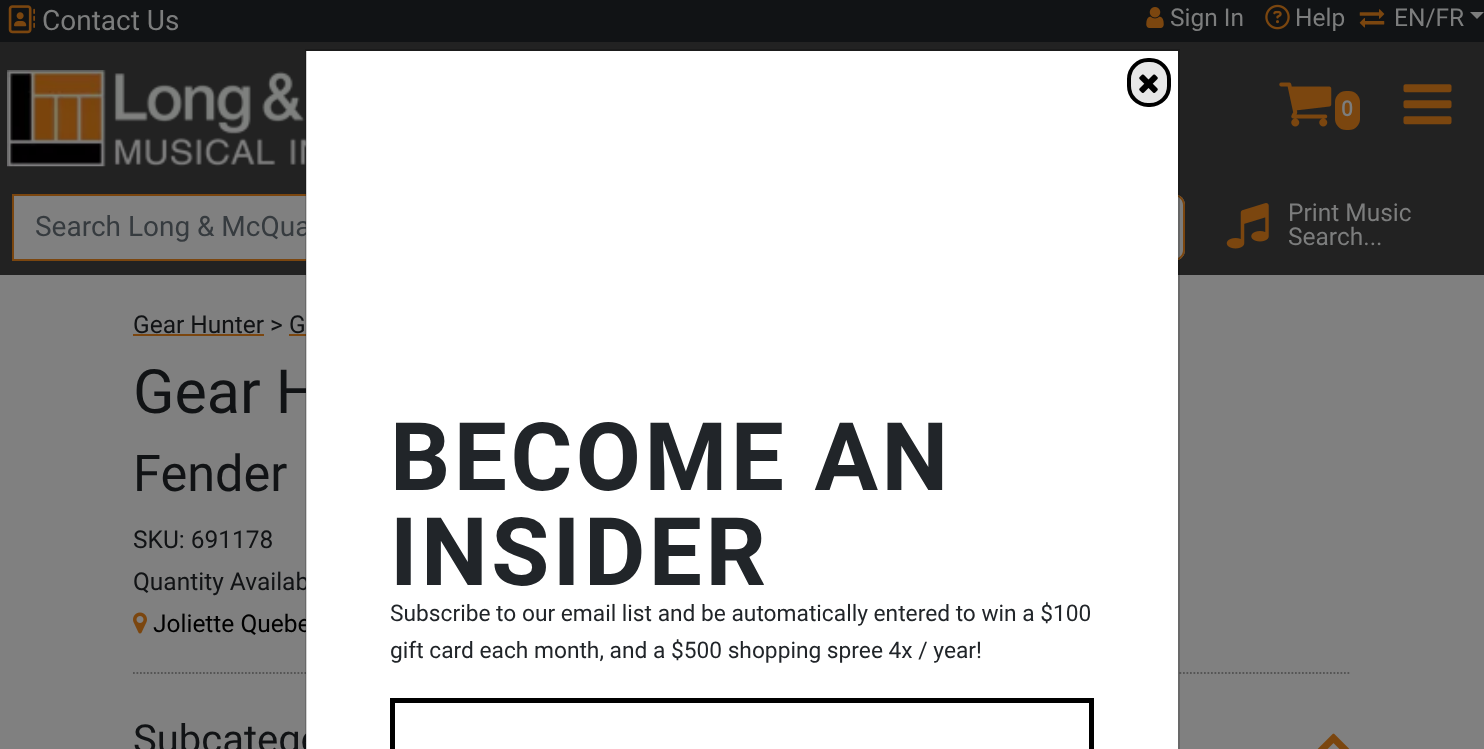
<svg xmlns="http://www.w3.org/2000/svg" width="1484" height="749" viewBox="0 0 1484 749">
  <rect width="100%" height="100%" fill="#808080"/>
  <rect x="0" y="0" width="1484" height="42" fill="#111315"/>
  <image x="8" y="5" width="27" height="29" href="img1.png"/>
  <text x="42" y="30" font-family="Roboto" font-size="28" fill="#7c7d7d">Contact Us</text>
  <image x="1146" y="7" width="18" height="21" href="img2.png"/>
  <text x="1170" y="26" font-family="Roboto" font-size="24.5" fill="#7c7d7d">Sign In</text>
  <image x="1265" y="4" width="25" height="26" href="img3.png"/>
  <text x="1295" y="26" font-family="Roboto" font-size="24.5" fill="#7c7d7d">Help</text>
  <image x="1359" y="9" width="26" height="19" href="img4.png"/>
  <text x="1394" y="26" font-family="Roboto" font-size="24.5" fill="#7c7d7d">EN/FR</text>
  <path d="M1470 12H1484L1477 19Z" fill="#7c7d7d"/>
  <rect x="0" y="42" width="1484" height="233" fill="#222222"/>
  <image x="7" y="70" width="299" height="97" href="img5.png"/>
  <image x="1279" y="82" width="53" height="45" href="img6.png"/>
  <rect x="1335" y="91" width="25" height="39" rx="11" fill="#7b460f"/>
  <text x="1341" y="116" font-family="Roboto" font-size="21" font-weight="bold" fill="#7c7d7d">0</text>
  <image x="1403" y="84" width="49" height="41" href="img7.png"/>
  <rect x="14" y="196" width="292" height="63" fill="#808080"/>
  <rect x="13" y="195" width="1103" height="65" fill="none" stroke="#7b460f" stroke-width="2"/>
  <text x="35" y="236" font-family="Roboto" font-size="28" fill="#363b3f">Search Long &amp; McQua</text>
  <path d="M1115 194H1174C1180 194 1185 199 1185 205V250C1185 256 1180 261 1174 261H1115Z" fill="#7c7d7d"/>
  <path d="M1115 194H1174C1180 194 1185 199 1185 205V250C1185 256 1180 261 1174 261H1115ZM1115 196H1174C1179 196 1183 200 1183 205V250C1183 255 1179 259 1174 259H1115Z" fill="#7b460f" fill-rule="evenodd"/>
  <image x="1226" y="203" width="43" height="46" href="img8.png"/>
  <text x="1288" y="221" font-family="Roboto" font-size="24.5" fill="#7c7d7d">Print Music</text>
  <text x="1288" y="245" font-family="Roboto" font-size="24.5" fill="#7c7d7d">Search...</text>
  <text x="133" y="333" font-family="Roboto" font-size="24.5" fill="#111315">Gear Hunter</text>
  <rect x="133" y="334" width="131" height="2" fill="#7b460f"/>
  <text x="270" y="333" font-family="Roboto" font-size="24.5" fill="#111315">&gt;</text>
  <text x="289" y="333" font-family="Roboto" font-size="24.5" fill="#111315">G</text>
  <rect x="289" y="334" width="17" height="2" fill="#7b460f"/>
  <text x="133" y="413" font-family="Roboto" font-size="61" fill="#111315">Gear H</text>
  <text x="133" y="491" font-family="Roboto" font-size="50.5" fill="#111315">Fender</text>
  <text x="133" y="548" font-family="Roboto" font-size="24.5" fill="#111315">SKU: 691178</text>
  <text x="133" y="590" font-family="Roboto" font-size="24.5" fill="#111315">Quantity Availab</text>
  <image x="133" y="612" width="14" height="22" href="img9.png"/>
  <text x="153" y="632" font-family="Roboto" font-size="24.5" fill="#000000">Joliette Quebe</text>
  <path d="M133 673H1351" fill="none" stroke="#555555" stroke-width="1.8" stroke-dasharray="1.75 1.75"/>
  <text x="133" y="753" font-family="Roboto" font-size="40" fill="#111315">Subcatego</text>
  <image x="1317" y="733" width="33" height="16" href="img10.png"/>
  <rect x="306" y="51" width="872" height="698" fill="#ffffff"/>
  <rect x="306" y="50" width="873" height="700" fill="none" stroke="#000000" stroke-opacity="0.18" stroke-width="2"/>
  <rect x="1129" y="60" width="40" height="45" rx="19" fill="#e7e7e7" stroke="#000000" stroke-width="4"/>
  <image x="1139" y="74" width="19" height="19" href="img11.png"/>
  <text x="390" y="490" font-family="'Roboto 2'" font-size="94.5" font-weight="bold" letter-spacing="3.5" fill="#212529">BECOME AN</text>
  <text x="390" y="585" font-family="'Roboto 2'" font-size="94.5" font-weight="bold" letter-spacing="3.5" fill="#212529">INSIDER</text>
  <text x="390" y="621" font-family="Roboto" font-size="22.75" fill="#212529">Subscribe to our email list and be automatically entered to win a $100</text>
  <text x="390" y="658" font-family="Roboto" font-size="22.75" fill="#212529">gift card each month, and a $500 shopping spree 4x / year!</text>
  <rect x="392.5" y="700.5" width="699" height="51" fill="none" stroke="#000000" stroke-width="5"/>
</svg>
